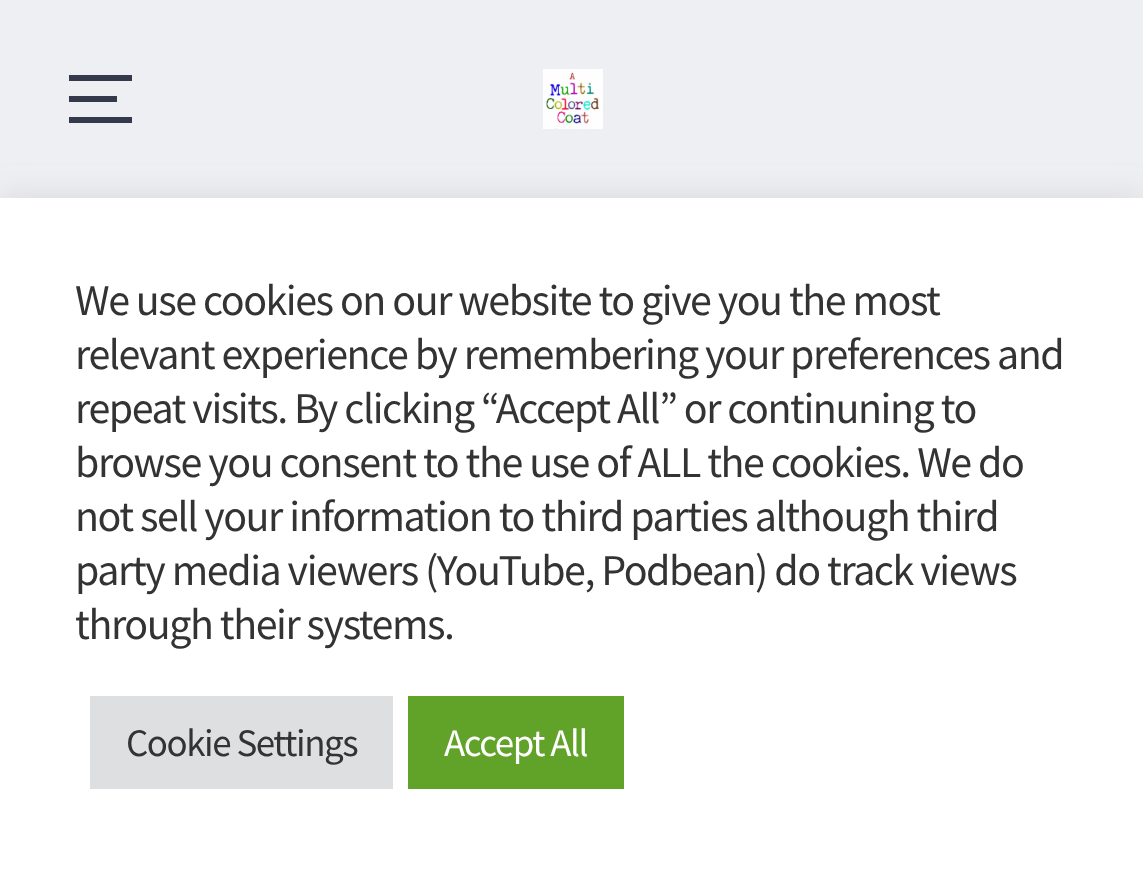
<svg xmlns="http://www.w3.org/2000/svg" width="1143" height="877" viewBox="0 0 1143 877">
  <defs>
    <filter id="blur1" x="-50%" y="-200%" width="200%" height="500%"><feGaussianBlur stdDeviation="15"/></filter>
  </defs>
  <rect width="100%" height="100%" fill="#eeeff2"/>
  <rect x="69" y="75" width="63" height="6" fill="#34394b"/>
  <rect x="69" y="96" width="48" height="6" fill="#34394b"/>
  <rect x="69" y="117" width="63" height="6" fill="#34394b"/>
  <image x="543" y="69" width="60" height="60" href="img1.png"/>
  <rect x="0" y="195" width="1143" height="681" fill="#acabab" fill-opacity="0.3" filter="url(#blur1)"/>
  <rect x="0" y="198" width="1143" height="679" fill="#ffffff"/>
  <text x="75" y="315" font-family="Source Sans Pro" font-size="44" letter-spacing="-1.45" fill="#333333">We use cookies on our website to give you the most</text>
  <text x="75" y="369" font-family="Source Sans Pro" font-size="44" letter-spacing="-1.45" fill="#333333">relevant experience by remembering your preferences and</text>
  <text x="75" y="423" font-family="Source Sans Pro" font-size="44" letter-spacing="-1.45" fill="#333333">repeat visits. By clicking “Accept All” or continuning to</text>
  <text x="75" y="477" font-family="Source Sans Pro" font-size="44" letter-spacing="-1.45" fill="#333333">browse you consent to the use of ALL the cookies. We do</text>
  <text x="75" y="531" font-family="Source Sans Pro" font-size="44" letter-spacing="-1.45" fill="#333333">not sell your information to third parties although third</text>
  <text x="75" y="585" font-family="Source Sans Pro" font-size="44" letter-spacing="-1.45" fill="#333333">party media viewers (YouTube, Podbean) do track views</text>
  <text x="75" y="639" font-family="Source Sans Pro" font-size="44" letter-spacing="-1.45" fill="#333333">through their systems.</text>
  <rect x="90" y="696" width="303" height="93" fill="#dedfe0"/>
  <text x="126" y="756" font-family="Source Sans Pro" font-size="39" letter-spacing="-1.45" fill="#333333">Cookie Settings</text>
  <rect x="408" y="696" width="216" height="93" fill="#61a229"/>
  <text x="444" y="756" font-family="Source Sans Pro" font-size="39" letter-spacing="-1.45" fill="#ffffff">Accept All</text>
</svg>
